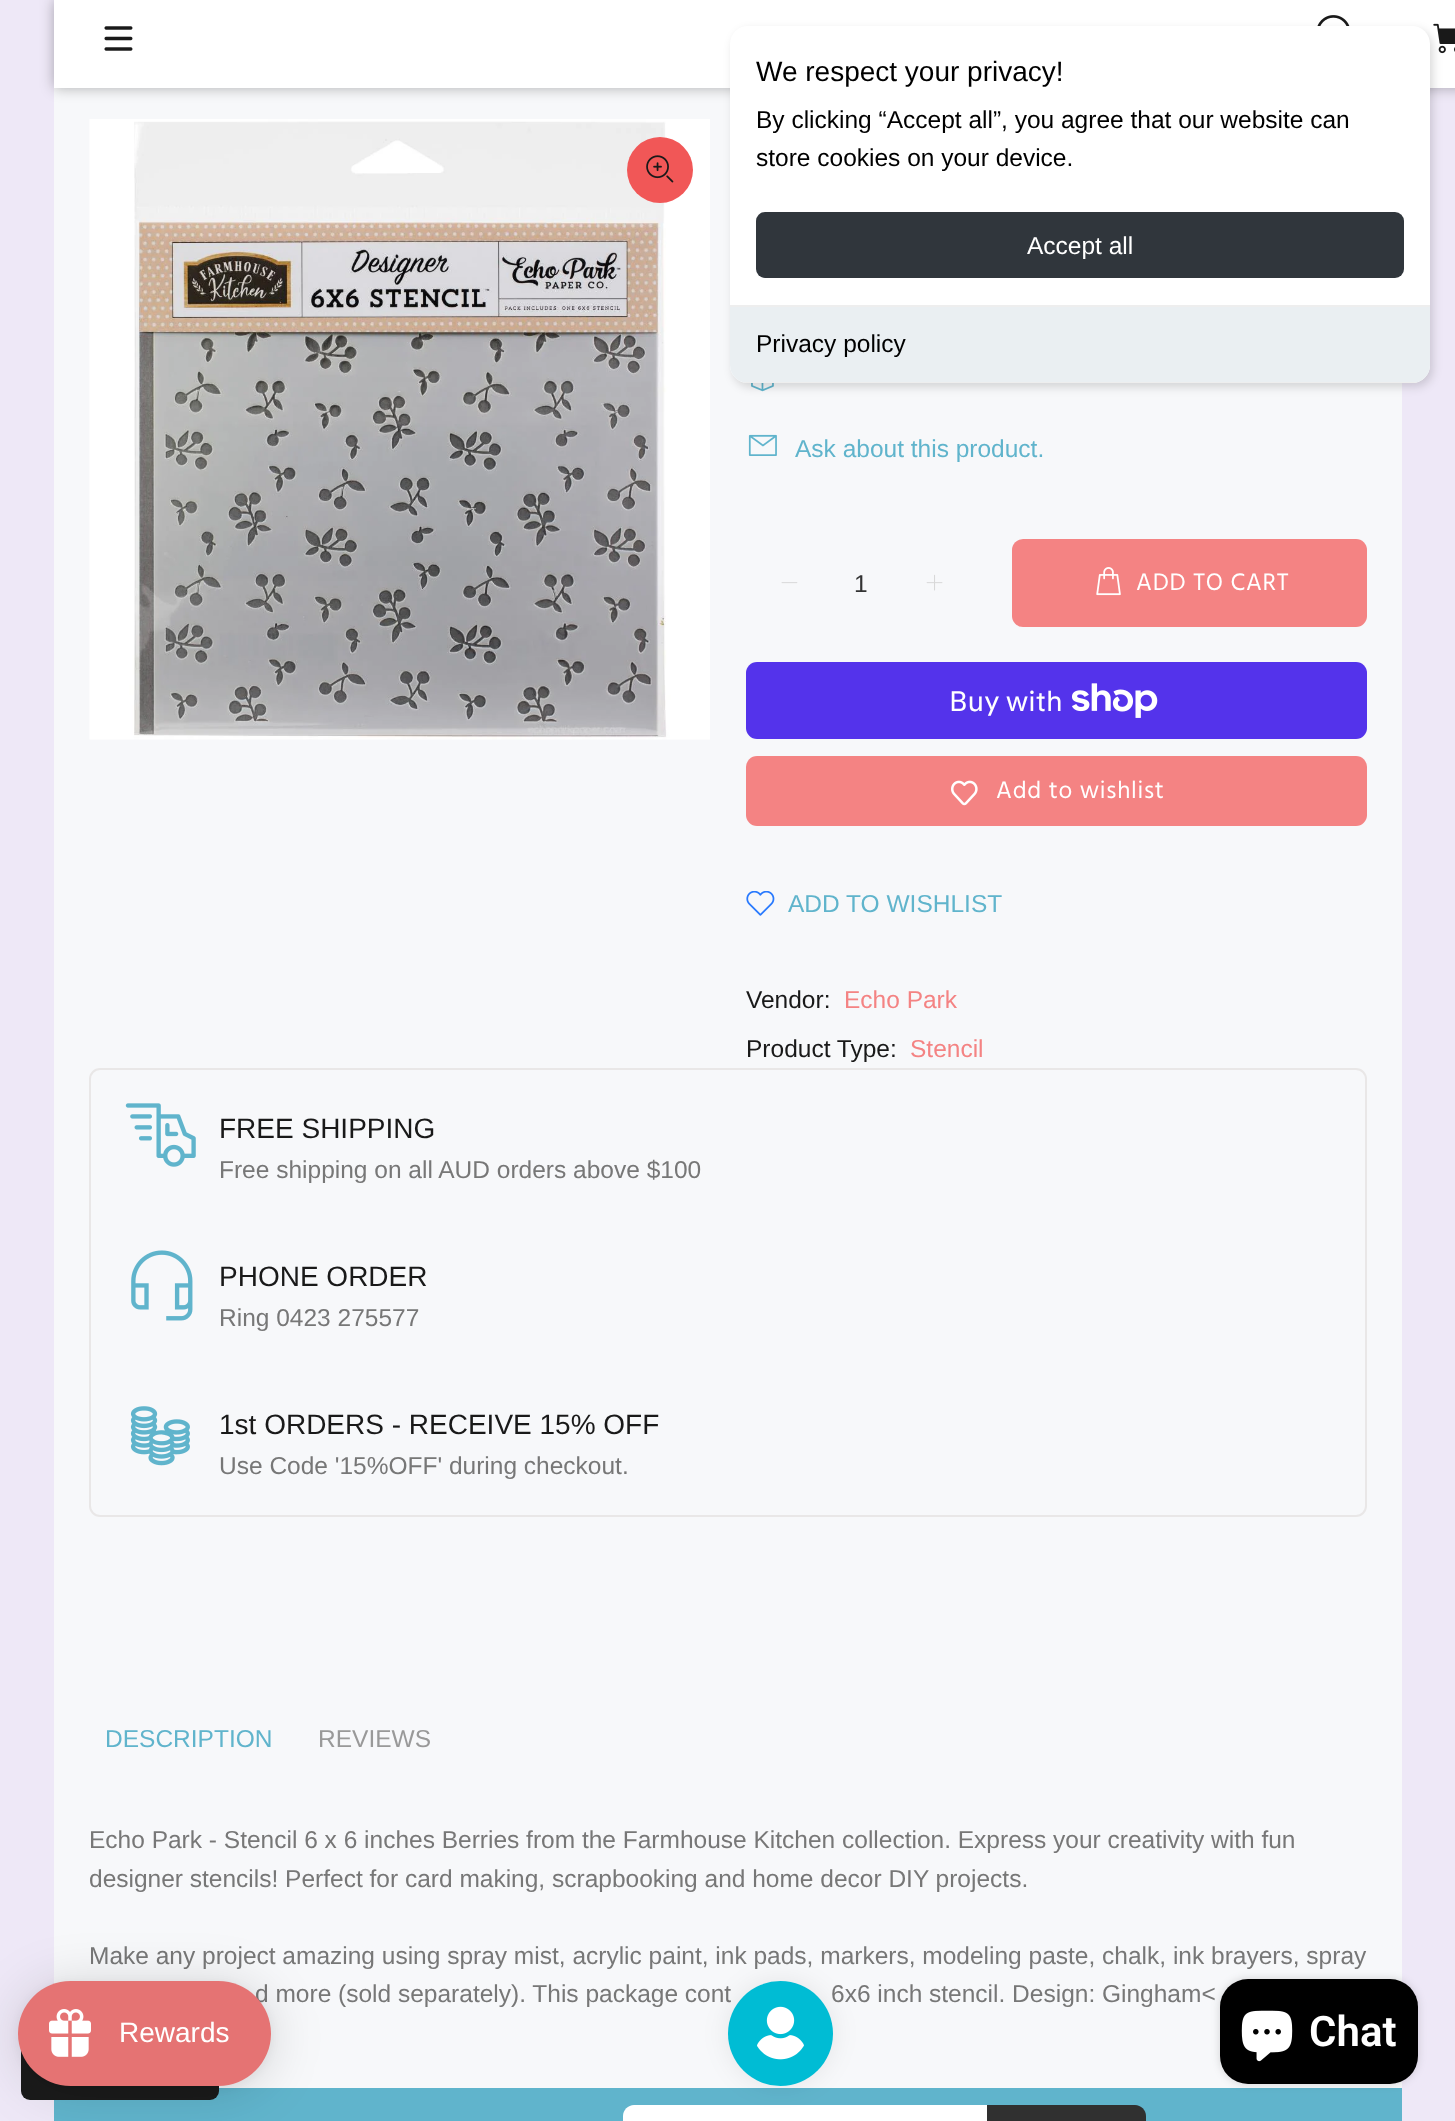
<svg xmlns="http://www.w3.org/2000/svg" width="1455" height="2121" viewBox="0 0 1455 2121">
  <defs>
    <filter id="blur1" x="-50%" y="-200%" width="200%" height="500%"><feGaussianBlur stdDeviation="7"/></filter>
    <filter id="blur2" x="-50%" y="-200%" width="200%" height="500%"><feGaussianBlur stdDeviation="5"/></filter>
    <clipPath id="clip1"><rect x="730" y="26" width="700" height="357" rx="18"/></clipPath>
    <filter id="blur3" x="-50%" y="-200%" width="200%" height="500%"><feGaussianBlur stdDeviation="26"/></filter>
    <filter id="blur4" x="-50%" y="-200%" width="200%" height="500%"><feGaussianBlur stdDeviation="13"/></filter>
    <filter id="blur5" x="-50%" y="-200%" width="200%" height="500%"><feGaussianBlur stdDeviation="4.5"/></filter>
  </defs>
  <rect width="100%" height="100%" fill="#eee8f7"/>
  <rect x="54" y="88" width="1348" height="2000" fill="#f7f8fa"/>
  <rect x="54" y="0" width="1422" height="88" fill="#000000" fill-opacity="0.3" filter="url(#blur1)"/>
  <rect x="54" y="0" width="1401" height="88" fill="#ffffff"/>
  <image x="104" y="26" width="29" height="25" href="img1.png"/>
  <image x="1317" y="15" width="33" height="11" href="img2.png"/>
  <image x="1433" y="23" width="22" height="31" href="img3.png"/>
  <image x="751" y="383" width="23" height="9" href="img6.png"/>
  <rect x="733" y="30" width="700" height="357" rx="18" fill="#000000" fill-opacity="0.15" filter="url(#blur2)"/>
  <rect x="730" y="26" width="700" height="357" rx="18" fill="#ffffff"/>
  <text x="756" y="81" font-family="Liberation Sans" font-size="28" fill="#000000">We respect your privacy!</text>
  <text x="756" y="128" font-family="Liberation Sans" font-size="24.5" fill="#000000">By clicking “Accept all”, you agree that our website can</text>
  <text x="756" y="166" font-family="Liberation Sans" font-size="24.5" fill="#000000">store cookies on your device.</text>
  <rect x="756" y="212" width="648" height="66" rx="9" fill="#30363c"/>
  <text x="1027" y="254" font-family="Liberation Sans" font-size="24.5" fill="#ffffff">Accept all</text>
  <path d="M730 305H1430V365C1430 375 1422 383 1412 383H748C738 383 730 375 730 365Z" fill="#eaeff2"/>
  <rect x="730" y="305" width="700" height="2" fill="#eeeeee"/>
  <g clip-path="url(#clip1)">
    <rect x="742" y="382" width="676" height="1" fill="#eeeeee"/>
  </g>
  <text x="756" y="352" font-family="Liberation Sans" font-size="24.5" fill="#000000">Privacy policy</text>
  <image x="89" y="119" width="621" height="621" href="img4.png"/>
  <circle cx="660" cy="170" r="33" fill="#f15757"/>
  <image x="646" y="155" width="28" height="28" href="img5.png"/>
  <image x="748" y="434" width="29" height="22" href="img7.png"/>
  <text x="795" y="457" font-family="Liberation Sans" font-size="24.5" fill="#60b4cc">Ask about this product.</text>
  <image x="781" y="582" width="17" height="2" href="img8.png"/>
  <text x="854" y="592" font-family="Liberation Sans" font-size="24.5" fill="#333333">1</text>
  <image x="926" y="574" width="17" height="17" href="img9.png"/>
  <rect x="1012" y="539" width="355" height="88" rx="11" fill="#f48383"/>
  <image x="1096" y="567" width="25" height="29" href="img10.png"/>
  <text x="1136" y="590" font-family="Hind" font-size="24.5" letter-spacing="0.75" fill="#ffffff">ADD TO CART</text>
  <rect x="746" y="662" width="621" height="77" rx="11" fill="#5433eb"/>
  <text x="949" y="711" font-family="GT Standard" font-size="28" fill="#ffffff">Buy with</text>
  <image x="1072" y="683" width="86" height="35" href="img11.png"/>
  <rect x="746" y="756" width="621" height="70" rx="11" fill="#f48383"/>
  <image x="951" y="780" width="27" height="26" href="img12.png"/>
  <text x="996" y="798" font-family="Hind" font-size="24.5" letter-spacing="0.75" fill="#ffffff">Add to wishlist</text>
  <image x="746" y="891" width="29" height="25" href="img13.png"/>
  <text x="788" y="912" font-family="Liberation Sans" font-size="24.5" fill="#60b4cc">ADD TO WISHLIST</text>
  <text x="746" y="1008" font-family="Liberation Sans" font-size="24.5" fill="#191919">Vendor:</text>
  <text x="844" y="1008" font-family="Liberation Sans" font-size="24.5" fill="#f48383">Echo Park</text>
  <text x="746" y="1057" font-family="Liberation Sans" font-size="24.5" fill="#191919">Product Type:</text>
  <text x="910" y="1057" font-family="Liberation Sans" font-size="24.5" fill="#f48383">Stencil</text>
  <rect x="90" y="1069" width="1276" height="447" rx="10" fill="none" stroke="#e9e7e7" stroke-width="2"/>
  <image x="125" y="1103" width="71" height="64" href="img14.png"/>
  <text x="219" y="1138" font-family="Liberation Sans" font-size="28" fill="#191919">FREE SHIPPING</text>
  <text x="219" y="1178" font-family="Liberation Sans" font-size="24.5" fill="#777777">Free shipping on all AUD orders above $100</text>
  <image x="131" y="1250" width="62" height="71" href="img15.png"/>
  <text x="219" y="1286" font-family="Liberation Sans" font-size="28" fill="#191919">PHONE ORDER</text>
  <text x="219" y="1326" font-family="Liberation Sans" font-size="24.5" fill="#777777">Ring 0423 275577</text>
  <image x="130" y="1406" width="60" height="60" href="img16.png"/>
  <text x="219" y="1434" font-family="Liberation Sans" font-size="28" fill="#191919">1st ORDERS - RECEIVE 15% OFF</text>
  <text x="219" y="1474" font-family="Liberation Sans" font-size="24.5" fill="#777777">Use Code '15%OFF' during checkout.</text>
  <text x="105" y="1747" font-family="Liberation Sans" font-size="24.5" fill="#60b4cc">DESCRIPTION</text>
  <text x="318" y="1747" font-family="Liberation Sans" font-size="24.5" fill="#999999">REVIEWS</text>
  <text x="89" y="1848" font-family="Liberation Sans" font-size="24.5" fill="#777777">Echo Park - Stencil 6 x 6 inches Berries from the Farmhouse Kitchen collection. Express your creativity with fun</text>
  <text x="89" y="1887" font-family="Liberation Sans" font-size="24.5" fill="#777777">designer stencils! Perfect for card making, scrapbooking and home decor DIY projects.</text>
  <text x="89" y="1964" font-family="Liberation Sans" font-size="24.5" fill="#777777">Make any project amazing using spray mist, acrylic paint, ink pads, markers, modeling paste, chalk, ink brayers, spray</text>
  <text x="255" y="2002" font-family="Liberation Sans" font-size="24.5" fill="#777777">d more (sold separately). This package cont</text>
  <text x="831" y="2002" font-family="Liberation Sans" font-size="24.5" fill="#777777">6x6 inch stencil. Design: Gingham&lt;</text>
  <rect x="54" y="2088" width="1348" height="33" fill="#60b4cc"/>
  <rect x="21" y="2027" width="198" height="73" rx="9" fill="#1a1a1a"/>
  <rect x="18" y="1985" width="253" height="105" rx="52.5" fill="#000000" fill-opacity="0.15" filter="url(#blur3)"/>
  <rect x="18" y="1983" width="253" height="105" rx="52.5" fill="#000000" fill-opacity="0.05" filter="url(#blur2)"/>
  <rect x="18" y="1981" width="253" height="105" rx="52.5" fill="#e57373"/>
  <image x="49" y="2009" width="42" height="48" href="img17.png"/>
  <text x="119" y="2042" font-family="Liberation Sans" font-size="28" fill="#ffffff">Rewards</text>
  <path d="M634 2105H987V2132H634C628 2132 623 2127 623 2121V2116C623 2110 628 2105 634 2105Z" fill="#ffffff"/>
  <rect x="728" y="1981" width="105" height="105" rx="52.5" fill="#000000" fill-opacity="0.08" filter="url(#blur4)"/>
  <circle cx="780.5" cy="2033.5" r="52.5" fill="#00bcd4"/>
  <image x="757" y="2006" width="47" height="54" href="img18.png"/>
  <rect x="1220" y="1979" width="198" height="105" rx="28" fill="#000000" fill-opacity="0.15" filter="url(#blur5)"/>
  <rect x="1220" y="1979" width="198" height="105" rx="28" fill="#000000"/>
  <image x="1241" y="2010" width="52" height="52" href="img19.png"/>
  <text x="1309" y="2046" font-family="Roboto" font-size="42" font-weight="600" fill="#ffffff">Chat</text>
  <path d="M987 2105H1135C1141 2105 1146 2110 1146 2116V2121C1146 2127 1141 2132 1135 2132H987Z" fill="#303030"/>
</svg>
